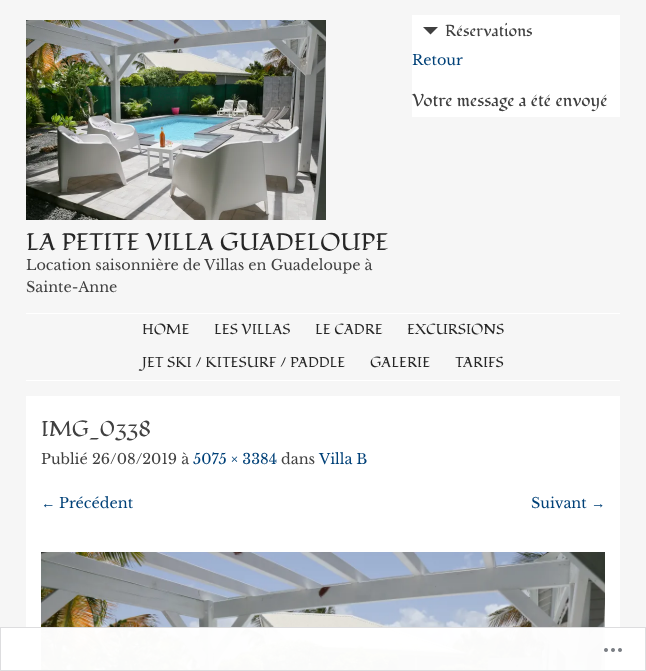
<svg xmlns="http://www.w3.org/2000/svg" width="646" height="671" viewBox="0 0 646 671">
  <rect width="100%" height="100%" fill="#f6f6f6"/>
  <rect x="412" y="15" width="208" height="102" fill="#ffffff"/>
  <path d="M423 27H438L430.5 34.5Z" fill="#404040"/>
  <text x="445" y="36" font-family="Fondamento" font-size="16" fill="#404040">Réservations</text>
  <text x="412" y="65" font-family="Libre Baskerville" font-size="14.4" fill="#004178">Retour</text>
  <text x="412" y="106" font-family="Fondamento" font-size="17.25" fill="#404040">Votre message a été envoyé</text>
  <image x="26" y="20" width="300" height="200" href="img1.png"/>
  <text x="26" y="250" font-family="Fondamento" font-size="24" fill="#262626">LA PETITE VILLA GUADELOUPE</text>
  <text x="26" y="270" font-family="Libre Baskerville" font-size="14.4" fill="#404040">Location saisonnière de Villas en Guadeloupe à</text>
  <text x="26" y="292" font-family="Libre Baskerville" font-size="14.4" fill="#404040">Sainte-Anne</text>
  <rect x="26" y="313" width="594" height="1" fill="#ffffff"/>
  <rect x="26" y="380" width="594" height="1" fill="#ffffff"/>
  <text x="142" y="334" font-family="Fondamento" font-size="14.4" fill="#262626">HOME</text>
  <text x="214" y="334" font-family="Fondamento" font-size="14.4" fill="#262626">LES VILLAS</text>
  <text x="315" y="334" font-family="Fondamento" font-size="14.4" fill="#262626">LE CADRE</text>
  <text x="407" y="334" font-family="Fondamento" font-size="14.4" fill="#262626">EXCURSIONS</text>
  <text x="142" y="367" font-family="Fondamento" font-size="14.4" fill="#262626">JET SKI / KITESURF / PADDLE</text>
  <text x="370" y="367" font-family="Fondamento" font-size="14.4" fill="#262626">GALERIE</text>
  <text x="455" y="367" font-family="Fondamento" font-size="14.4" fill="#262626">TARIFS</text>
  <rect x="26" y="396" width="594" height="275" fill="#ffffff"/>
  <text x="41" y="436" font-family="Fondamento" font-size="21.5" fill="#404040">IMG_0338</text>
  <text x="41" y="464" font-family="Libre Baskerville" font-size="14.4" fill="#404040">Publié 26/08/2019 à</text>
  <text x="193" y="464" font-family="Libre Baskerville" font-size="14.4" fill="#004178">5075 × 3384</text>
  <text x="281" y="464" font-family="Libre Baskerville" font-size="14.4" fill="#404040">dans</text>
  <text x="319" y="464" font-family="Libre Baskerville" font-size="14.4" fill="#004178">Villa B</text>
  <text x="41" y="508" font-family="Liberation Serif" font-size="14.4" fill="#004178">←</text>
  <text x="59" y="508" font-family="Libre Baskerville" font-size="14.4" fill="#004178">Précédent</text>
  <text x="531" y="508" font-family="Libre Baskerville" font-size="14.4" fill="#004178">Suivant</text>
  <text x="591" y="508" font-family="Liberation Serif" font-size="14.4" fill="#004178">→</text>
  <image x="41" y="552" width="564" height="119" href="img2.png"/>
  <rect x="0" y="627" width="646" height="44" fill="#ffffff" fill-opacity="0.98"/>
  <rect x="0.5" y="627.5" width="645" height="43" fill="none" stroke="#dcdcde" stroke-opacity="0.98"/>
  <image x="604" y="648" width="18" height="4" href="img3.png"/>
</svg>
